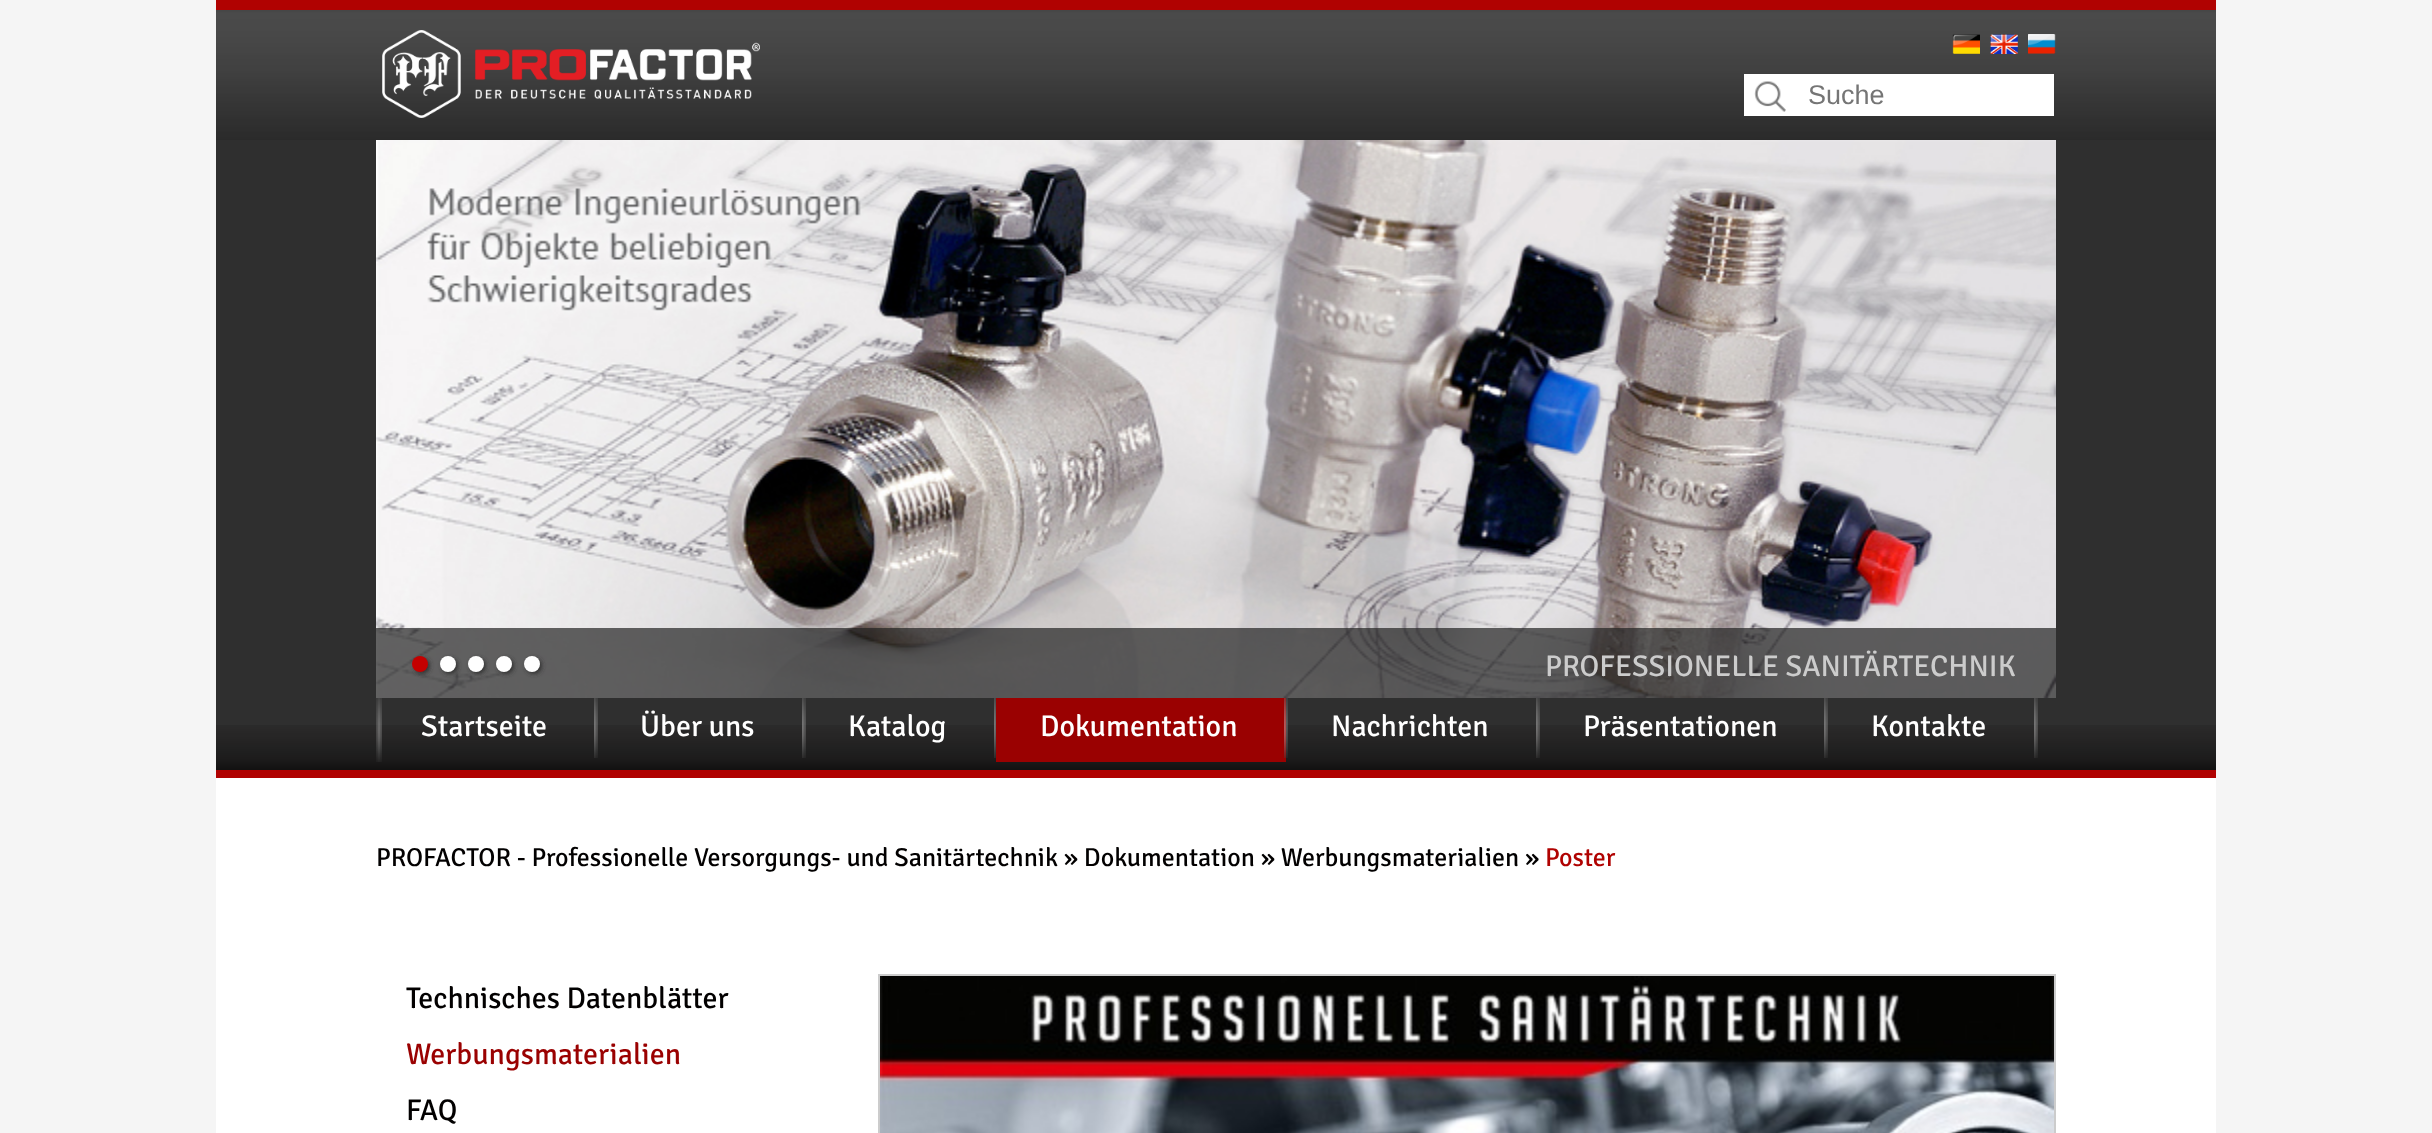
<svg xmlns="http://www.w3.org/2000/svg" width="2432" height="1133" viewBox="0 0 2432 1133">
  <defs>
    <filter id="blur1" x="-50%" y="-200%" width="200%" height="500%"><feGaussianBlur stdDeviation="2"/></filter>
  </defs>
  <rect width="100%" height="100%" fill="#f5f5f5"/>
  <rect x="216" y="10" width="2000" height="715" fill="#2f2f2f"/>
  <image x="216" y="10" width="2000" height="130" href="img1.png"/>
  <rect x="216" y="0" width="2000" height="10" fill="#b00201"/>
  <image x="382" y="30" width="378" height="88" href="img2.png"/>
  <image x="1952" y="34" width="28" height="20" href="img3.png"/>
  <image x="1990" y="34" width="28" height="20" href="img4.png"/>
  <image x="2028" y="34" width="28" height="20" href="img5.png"/>
  <rect x="1744" y="74" width="310" height="42" fill="#ffffff"/>
  <image x="1754" y="81" width="32" height="31" href="img6.png"/>
  <text x="1808" y="104" font-family="Liberation Sans" font-size="27" fill="#757575">Suche</text>
  <image x="376" y="140" width="1680" height="558" href="img7.png"/>
  <rect x="376" y="628" width="1680" height="70" fill="#222222" fill-opacity="0.7"/>
  <rect x="414" y="658" width="16" height="16" rx="8" fill="#333333" filter="url(#blur1)"/>
  <circle cx="420" cy="664" r="8" fill="#c40000"/>
  <rect x="442" y="658" width="16" height="16" rx="8" fill="#333333" filter="url(#blur1)"/>
  <circle cx="448" cy="664" r="8" fill="#ffffff"/>
  <rect x="470" y="658" width="16" height="16" rx="8" fill="#333333" filter="url(#blur1)"/>
  <circle cx="476" cy="664" r="8" fill="#ffffff"/>
  <rect x="498" y="658" width="16" height="16" rx="8" fill="#333333" filter="url(#blur1)"/>
  <circle cx="504" cy="664" r="8" fill="#ffffff"/>
  <rect x="526" y="658" width="16" height="16" rx="8" fill="#333333" filter="url(#blur1)"/>
  <circle cx="532" cy="664" r="8" fill="#ffffff"/>
  <text x="1545" y="676" font-family="Signika" font-size="30" font-weight="300" fill="#cccccc">PROFESSIONELLE SANITÄRTECHNIK</text>
  <image x="216" y="725" width="2000" height="45" href="img8.png"/>
  <rect x="216" y="770" width="2000" height="8" fill="#b00201"/>
  <image x="376" y="698" width="6" height="64" href="img9.png"/>
  <text x="421" y="736" font-family="Signika" font-size="30" font-weight="300" fill="#ffffff">Startseite</text>
  <image x="594" y="698" width="4" height="60" href="img10.png"/>
  <text x="640" y="736" font-family="Signika" font-size="30" font-weight="300" fill="#ffffff">Über uns</text>
  <image x="802" y="698" width="4" height="60" href="img10.png"/>
  <text x="848" y="736" font-family="Signika" font-size="30" font-weight="300" fill="#ffffff">Katalog</text>
  <image x="994" y="698" width="2" height="60" href="img11.png"/>
  <rect x="996" y="698" width="290" height="64" fill="#9a0101"/>
  <text x="1040" y="736" font-family="Signika" font-size="30" font-weight="300" fill="#ffffff">Dokumentation</text>
  <image x="1284" y="698" width="4" height="60" href="img12.png"/>
  <text x="1331" y="736" font-family="Signika" font-size="30" font-weight="300" fill="#ffffff">Nachrichten</text>
  <image x="1536" y="698" width="4" height="60" href="img10.png"/>
  <text x="1583" y="736" font-family="Signika" font-size="30" font-weight="300" fill="#ffffff">Präsentationen</text>
  <image x="1824" y="698" width="4" height="60" href="img10.png"/>
  <text x="1871" y="736" font-family="Signika" font-size="30" font-weight="300" fill="#ffffff">Kontakte</text>
  <image x="2034" y="698" width="4" height="60" href="img10.png"/>
  <rect x="216" y="778" width="2000" height="355" fill="#ffffff"/>
  <text x="376" y="866" font-family="Signika" font-size="26" font-weight="300" fill="#020000">PROFACTOR - Professionelle Versorgungs- und Sanitärtechnik » Dokumentation » Werbungsmaterialien »</text>
  <text x="1545" y="866" font-family="Signika" font-size="26" font-weight="300" fill="#b00201">Poster</text>
  <text x="406" y="1008" font-family="Signika" font-size="30" font-weight="300" fill="#020000">Technisches Datenblätter</text>
  <text x="406" y="1064" font-family="Signika" font-size="30" font-weight="300" fill="#9a0101">Werbungsmaterialien</text>
  <text x="406" y="1120" font-family="Signika" font-size="30" font-weight="300" fill="#020000">FAQ</text>
  <rect x="879" y="975" width="1176" height="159" fill="none" stroke="#cccccc" stroke-width="2"/>
  <image x="880" y="976" width="1174" height="157" href="img13.png"/>
</svg>
